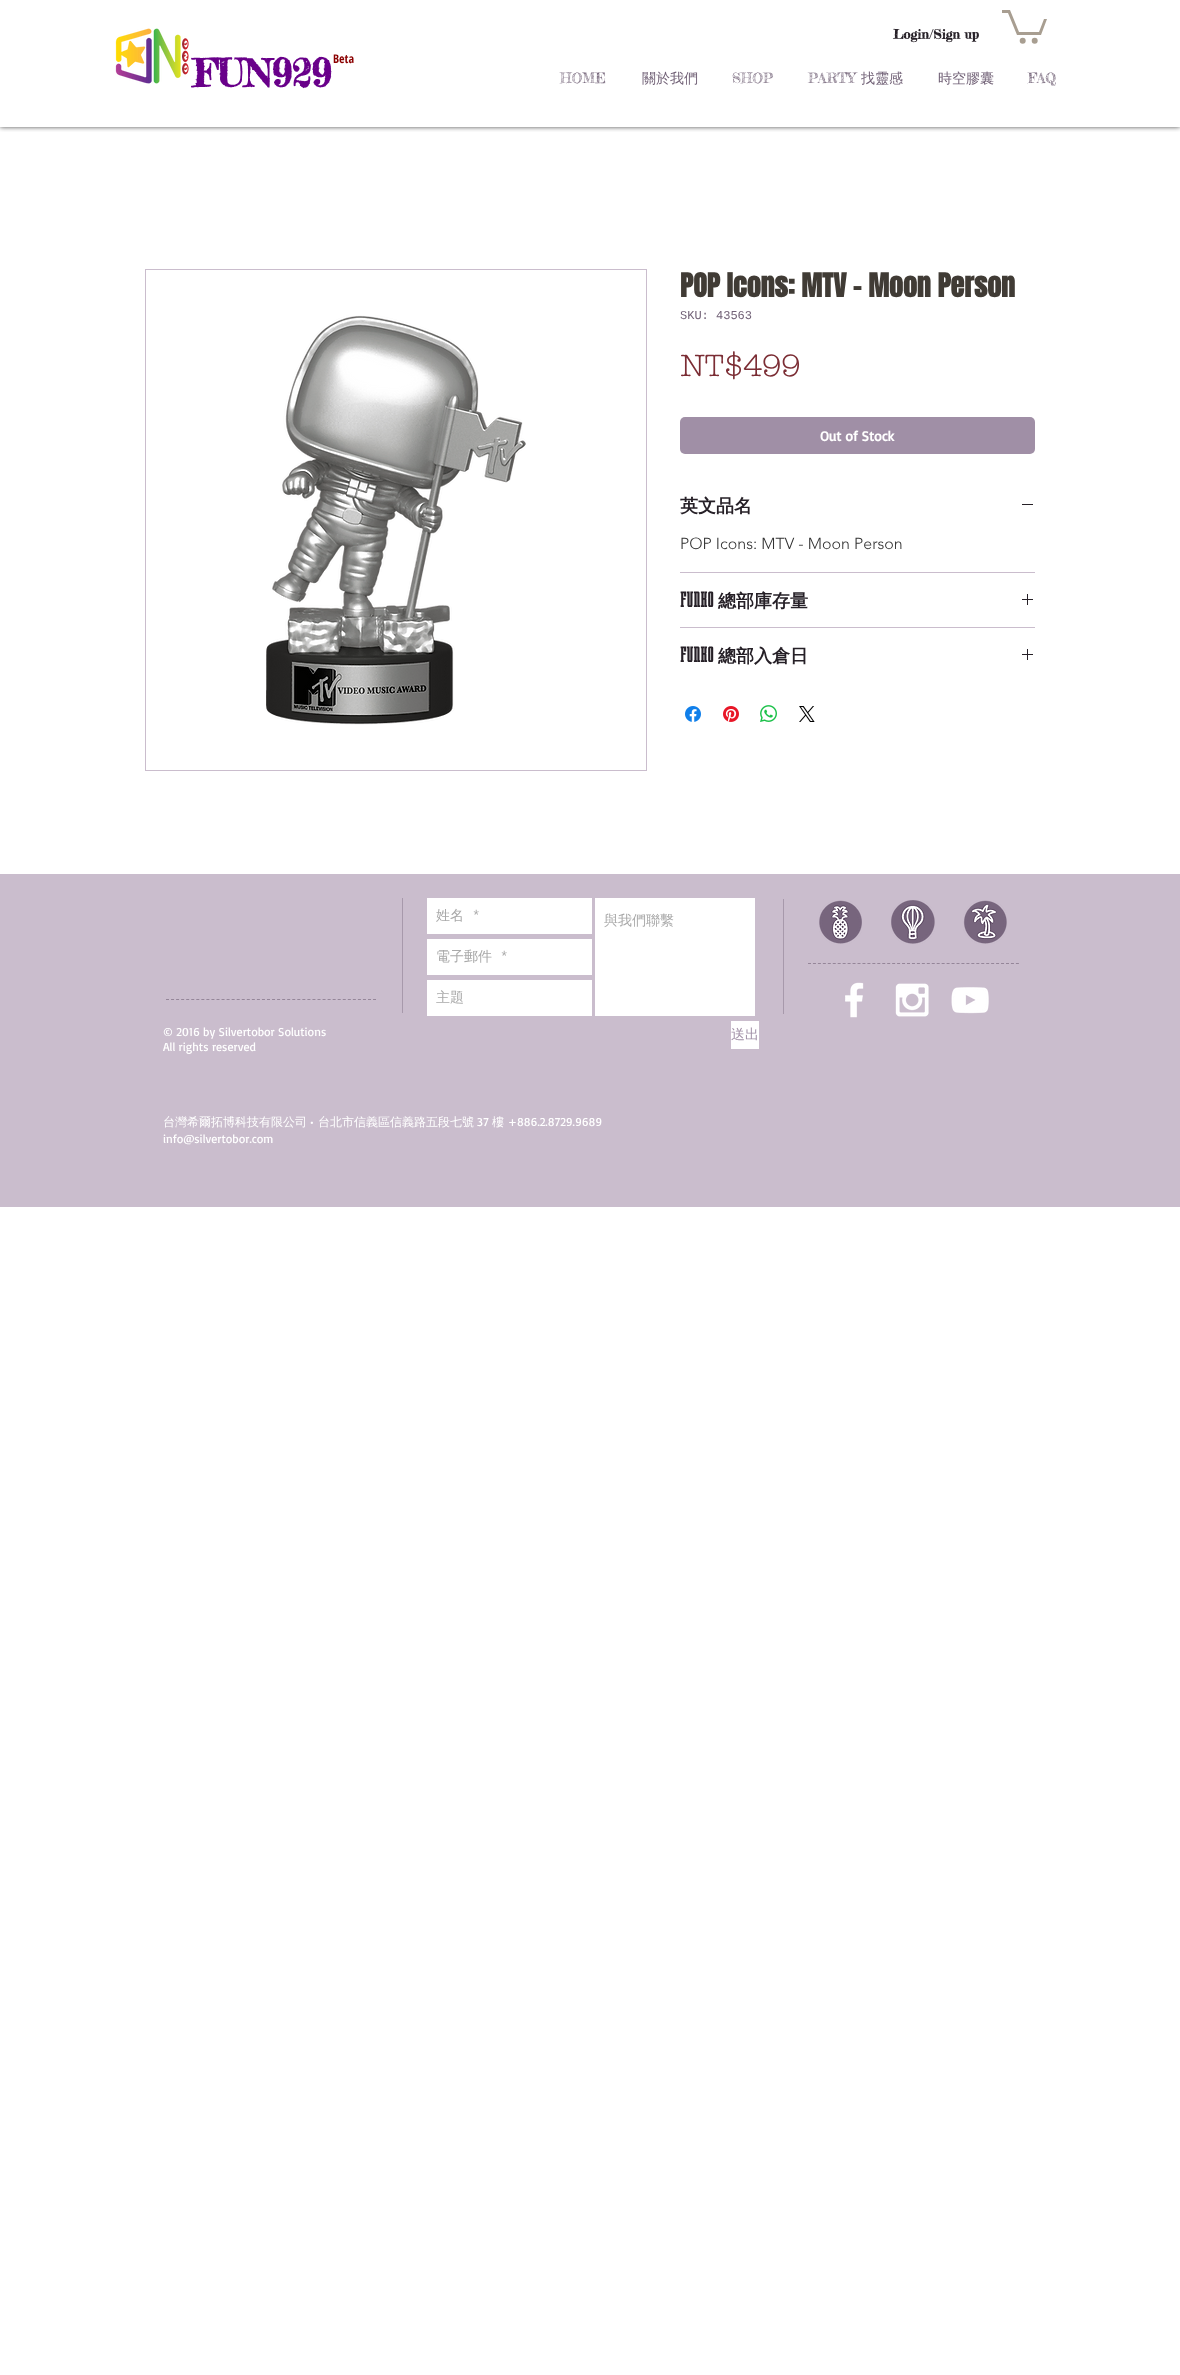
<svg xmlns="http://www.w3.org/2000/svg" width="1180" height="2375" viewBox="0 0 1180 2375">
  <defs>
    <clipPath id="clip1"><rect x="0" y="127" width="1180" height="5"/></clipPath>
    <filter id="blur1" x="-50%" y="-200%" width="200%" height="500%"><feGaussianBlur stdDeviation="2.5"/></filter>
  </defs>
  <rect width="100%" height="100%" fill="#ffffff"/>
  <g clip-path="url(#clip1)">
    <rect x="0" y="0" width="1180" height="127" fill="#000000" fill-opacity="0.7" filter="url(#blur1)"/>
  </g>
  <image x="115" y="28" width="74" height="56" href="img1.png"/>
  <text x="893" y="39" font-family="Fredericka the Great" font-size="13" font-weight="bold" fill="#262027">Login/Sign up</text>
  <path d="M1047 19L1041 35H1017L1008 13H1002V10H1010L1019 32H1039L1044 19" fill="#a89e91"/>
  <circle cx="1034.7" cy="40.8" r="3" fill="#a89e91"/>
  <circle cx="1022.7" cy="40.8" r="3" fill="#a89e91"/>
  <text x="193" y="87" font-family="Fredericka the Great" font-size="38" font-weight="bold" fill="#69008a">FUN929</text>
  <text x="333" y="63" font-family="Open Sans Condensed" font-size="12" font-weight="bold" fill="#8b0000">Beta</text>
  <text x="560" y="83" font-family="Fredericka the Great" font-size="14" fill="#726277">HOME</text>
  <text x="642" y="83" font-family="WenQuanYi Zen Hei" font-size="14" font-weight="500" fill="#726277">關於我們</text>
  <text x="732" y="83" font-family="Fredericka the Great" font-size="14" fill="#726277">SHOP</text>
  <text x="808" y="83" font-family="Fredericka the Great" font-size="14" fill="#726277">PARTY</text>
  <text x="861" y="83" font-family="WenQuanYi Zen Hei" font-size="14" font-weight="500" fill="#726277">找靈感</text>
  <text x="938" y="83" font-family="WenQuanYi Zen Hei" font-size="14" font-weight="500" fill="#726277">時空膠囊</text>
  <text x="1028" y="83" font-family="Fredericka the Great" font-size="14" fill="#726277">FAQ</text>
  <rect x="145.5" y="269.5" width="501" height="501" fill="none" stroke="#cabdcd"/>
  <image x="266" y="315" width="260" height="410" href="img2.png"/>
  <text x="680" y="297" font-family="Anton" font-size="28" font-weight="bold" fill="#403b35">POP Icons: MTV - Moon Person</text>
  <text x="680" y="319" font-family="Liberation Mono" font-size="12" fill="#726277">SKU: 43563</text>
  <text x="680" y="376" font-family="'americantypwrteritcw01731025'" font-size="30" font-weight="bold" fill="#7b2d34">NT$499</text>
  <rect x="680" y="417" width="355" height="37" rx="5" fill="#a08fa6"/>
  <text x="820" y="441" font-family="Basic" font-size="14" font-weight="bold" fill="#ffffff">Out of Stock</text>
  <rect x="680" y="572" width="355" height="1" fill="#cabdcd"/>
  <text x="680" y="512" font-family="WenQuanYi Zen Hei" font-size="18" font-weight="bold" fill="#262027">英文品名</text>
  <rect x="1022" y="504" width="11" height="1" fill="#262027"/>
  <text x="680" y="549" font-family="'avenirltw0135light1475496'" font-size="16" font-weight="300" fill="#323232">POP Icons: MTV - Moon Person</text>
  <rect x="680" y="627" width="355" height="1" fill="#cabdcd"/>
  <text x="680" y="607" font-family="'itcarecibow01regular'" font-size="18" font-weight="bold" fill="#262027">FUNKO</text>
  <text x="718" y="607" font-family="WenQuanYi Zen Hei" font-size="18" font-weight="bold" fill="#262027">總部庫存量</text>
  <image x="1022" y="594" width="11" height="11" href="img3.png"/>
  <text x="680" y="662" font-family="'itcarecibow01regular'" font-size="18" font-weight="bold" fill="#262027">FUNKO</text>
  <text x="718" y="662" font-family="WenQuanYi Zen Hei" font-size="18" font-weight="bold" fill="#262027">總部入倉日</text>
  <image x="1022" y="649" width="11" height="11" href="img3.png"/>
  <image x="685" y="706" width="16" height="16" href="img4.png"/>
  <image x="723" y="706" width="16" height="16" href="img5.png"/>
  <image x="760" y="705" width="17" height="17" href="img6.png"/>
  <image x="799" y="706" width="16" height="16" href="img7.png"/>
  <rect x="0" y="874" width="1180" height="333" fill="#cabdcd"/>
  <rect x="402" y="898" width="1" height="115" fill="#a799ab"/>
  <rect x="427" y="898" width="165" height="36" fill="#ffffff"/>
  <text x="436" y="920" font-family="WenQuanYi Zen Hei" font-size="14" font-weight="500" fill="#a9a9a9">姓名</text>
  <text x="472" y="920" font-family="Liberation Mono" font-size="14" fill="#a9a9a9">*</text>
  <rect x="595" y="898" width="160" height="118" fill="#ffffff"/>
  <text x="604" y="925" font-family="WenQuanYi Zen Hei" font-size="14" font-weight="500" fill="#a9a9a9">與我們聯繫</text>
  <rect x="427" y="939" width="165" height="36" fill="#ffffff"/>
  <text x="436" y="961" font-family="WenQuanYi Zen Hei" font-size="14" font-weight="500" fill="#a9a9a9">電子郵件</text>
  <text x="500" y="961" font-family="Liberation Mono" font-size="14" fill="#a9a9a9">*</text>
  <rect x="427" y="980" width="165" height="36" fill="#ffffff"/>
  <text x="436" y="1002" font-family="WenQuanYi Zen Hei" font-size="14" font-weight="500" fill="#a9a9a9">主題</text>
  <rect x="731" y="1021" width="28" height="28" fill="#ffffff"/>
  <text x="731" y="1039" font-family="WenQuanYi Zen Hei" font-size="14" font-weight="500" fill="#a08fa6">送出</text>
  <rect x="783" y="899" width="1" height="115" fill="#a799ab"/>
  <image x="819" y="900" width="43" height="44" href="img8.png"/>
  <image x="891" y="900" width="44" height="44" href="img9.png"/>
  <image x="963" y="900" width="44" height="44" href="img10.png"/>
  <path d="M808 963.5H1019" fill="none" stroke="#958699" stroke-dasharray="3 1.95"/>
  <path d="M166 999.5H376" fill="none" stroke="#958699" stroke-dasharray="3 2.05"/>
  <image x="845" y="982" width="19" height="36" href="img11.png"/>
  <image x="895" y="983" width="34" height="34" href="img12.png"/>
  <image x="951" y="987" width="38" height="27" href="img13.png"/>
  <text x="163" y="1036" font-family="Basic" font-size="12" fill="#ffffff">© 2016 by Silvertobor Solutions</text>
  <text x="163" y="1051" font-family="Basic" font-size="12" fill="#ffffff">All rights reserved</text>
  <text x="163" y="1126" font-family="WenQuanYi Zen Hei" font-size="12" font-weight="500" fill="#ffffff">台灣希爾拓博科技有限公司</text>
  <text x="310" y="1126" font-family="Basic" font-size="12" fill="#ffffff">•</text>
  <text x="318" y="1126" font-family="WenQuanYi Zen Hei" font-size="12" font-weight="500" fill="#ffffff">台北市信義區信義路五段七號</text>
  <text x="477" y="1126" font-family="Basic" font-size="12" fill="#ffffff">37</text>
  <text x="492" y="1126" font-family="WenQuanYi Zen Hei" font-size="12" font-weight="500" fill="#ffffff">樓</text>
  <text x="508" y="1126" font-family="Basic" font-size="12" fill="#ffffff">+886.2.8729.9689</text>
  <text x="163" y="1143" font-family="Basic" font-size="12" fill="#ffffff">info@silvertobor.com</text>
</svg>
